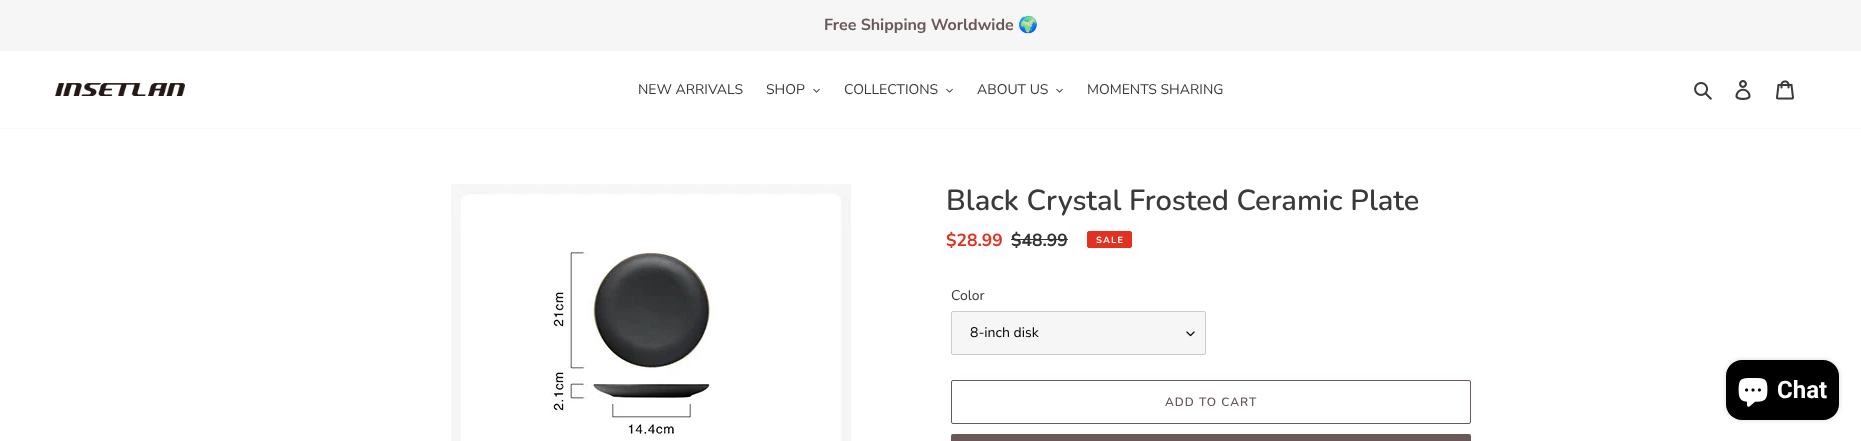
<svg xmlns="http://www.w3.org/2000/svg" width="1861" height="441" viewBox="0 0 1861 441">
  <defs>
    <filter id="blur1" x="-50%" y="-200%" width="200%" height="500%"><feGaussianBlur stdDeviation="2.5"/></filter>
  </defs>
  <rect width="100%" height="100%" fill="#ffffff"/>
  <rect x="0" y="0" width="1861" height="51" fill="#f6f6f6"/>
  <text x="824" y="30" font-family="Nunito Sans" font-size="16" font-weight="bold" fill="#685858">Free Shipping Worldwide</text>
  <text x="1018" y="30" font-family="Noto Color Emoji" font-size="16" font-weight="bold" fill="#685858">🌍</text>
  <rect x="0" y="128" width="1861" height="1" fill="#fafafa"/>
  <image x="55" y="83" width="130" height="13" href="img1.png"/>
  <text x="638" y="94" font-family="Nunito Sans" font-size="14" fill="#3a3a3a">NEW ARRIVALS</text>
  <text x="766" y="94" font-family="Nunito Sans" font-size="14" fill="#3a3a3a">SHOP</text>
  <image x="813" y="88" width="7" height="5" href="img2.png"/>
  <text x="844" y="94" font-family="Nunito Sans" font-size="14" fill="#3a3a3a">COLLECTIONS</text>
  <image x="946" y="88" width="7" height="5" href="img2.png"/>
  <text x="977" y="94" font-family="Nunito Sans" font-size="14" fill="#3a3a3a">ABOUT US</text>
  <image x="1056" y="88" width="7" height="5" href="img2.png"/>
  <text x="1087" y="94" font-family="Nunito Sans" font-size="14" fill="#3a3a3a">MOMENTS SHARING</text>
  <image x="1694" y="82" width="18" height="18" href="img3.png"/>
  <image x="1735" y="80" width="16" height="20" href="img4.png"/>
  <image x="1776" y="80" width="18" height="20" href="img5.png"/>
  <image x="451" y="184" width="400" height="257" href="img6.png"/>
  <text x="946" y="210" font-family="Nunito" font-size="29" font-weight="600" fill="#3a3a3a">Black Crystal Frosted Ceramic Plate</text>
  <text x="946" y="246" font-family="Nunito Sans" font-size="17.5" font-weight="bold" fill="#e23120">$28.99</text>
  <text x="1011" y="246" font-family="Nunito Sans" font-size="17.5" font-weight="bold" fill="#333232">$48.99</text>
  <rect x="1011" y="239" width="57" height="1" fill="#333232"/>
  <rect x="1087.5" y="231.5" width="44" height="16" rx="1.5" fill="#e23120" stroke="#e23120"/>
  <text x="1096" y="243" font-family="'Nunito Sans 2'" font-size="9" font-weight="bold" letter-spacing="1" fill="#ffffff">SALE</text>
  <text x="951" y="300" font-family="Nunito Sans" font-size="14" fill="#3a3a3a">Color</text>
  <rect x="951" y="311" width="255" height="44" rx="2" fill="#f6f6f6"/>
  <image x="1186" y="331" width="9" height="6" href="img7.png"/>
  <rect x="951.5" y="311.5" width="254" height="43" rx="1.5" fill="none" stroke="#cccccc"/>
  <text x="970" y="337" font-family="Nunito Sans" font-size="14" fill="#000000">8-inch disk</text>
  <rect x="951.5" y="380.5" width="519" height="43" rx="1.5" fill="none" stroke="#685858"/>
  <text x="1165" y="406" font-family="Nunito" font-size="12" font-weight="600" letter-spacing="1" fill="#685858">ADD TO CART</text>
  <rect x="951" y="434" width="520" height="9" rx="2" fill="#685858"/>
  <rect x="1726" y="360" width="113" height="60" rx="16" fill="#000000" fill-opacity="0.15" filter="url(#blur1)"/>
  <rect x="1726" y="360" width="113" height="60" rx="16" fill="#000000"/>
  <image x="1738" y="378" width="30" height="29" href="img8.png"/>
  <text x="1777" y="398" font-family="Roboto" font-size="24" font-weight="bold" fill="#ffffff">Chat</text>
</svg>
